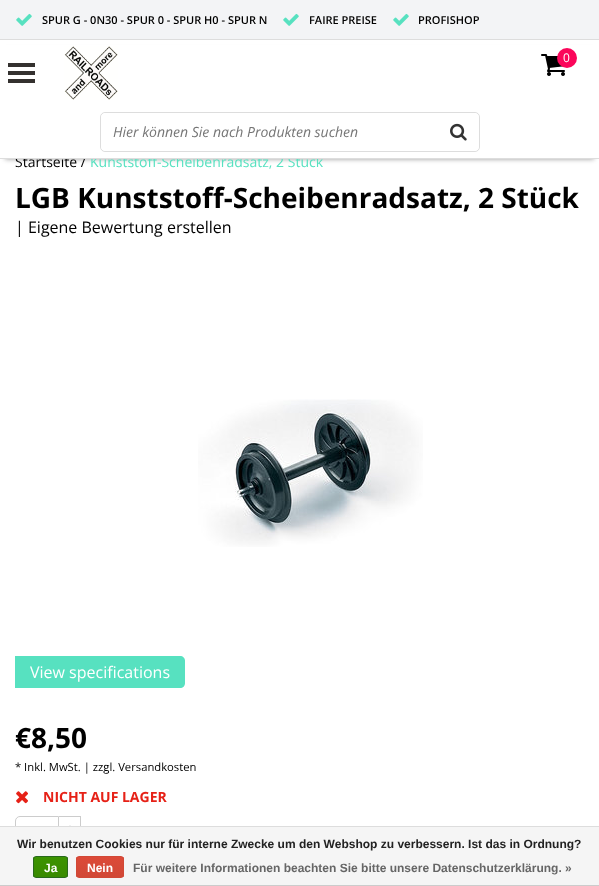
<svg xmlns="http://www.w3.org/2000/svg" width="599" height="886" viewBox="0 0 599 886">
  <defs>
    <filter id="blur1" x="-50%" y="-200%" width="200%" height="500%"><feGaussianBlur stdDeviation="2.5"/></filter>
    <clipPath id="clip1"><rect x="33" y="856" width="35" height="22" rx="3"/></clipPath>
    <linearGradient id="g1" gradientUnits="userSpaceOnUse" x1="51" y1="857" x2="51" y2="877"><stop offset="0" stop-color="#3c9300"/><stop offset="1" stop-color="#398a00"/></linearGradient>
    <clipPath id="clip2"><rect x="76" y="856" width="48" height="22" rx="3"/></clipPath>
    <linearGradient id="g2" gradientUnits="userSpaceOnUse" x1="100" y1="857" x2="100" y2="877"><stop offset="0" stop-color="#dc4a38"/><stop offset="1" stop-color="#d14836"/></linearGradient>
  </defs>
  <rect width="100%" height="100%" fill="#ffffff"/>
  <rect x="0" y="0" width="599" height="39" fill="#f3f4f6"/>
  <rect x="0" y="39" width="599" height="1" fill="#dddddd"/>
  <image x="16" y="13" width="16" height="13" href="img1.png"/>
  <text x="42" y="24" font-family="Open Sans" font-size="11" font-weight="600" fill="#000000">SPUR G - 0N30 - SPUR 0 - SPUR H0 - SPUR N</text>
  <image x="283" y="13" width="16" height="13" href="img1.png"/>
  <text x="309" y="24" font-family="Open Sans" font-size="11" font-weight="600" fill="#000000">FAIRE PREISE</text>
  <image x="393" y="13" width="16" height="13" href="img1.png"/>
  <text x="418" y="24" font-family="Open Sans" font-size="11" font-weight="600" fill="#000000">PROFISHOP</text>
  <rect x="5" y="50" width="589" height="109" fill="#000000" fill-opacity="0.4" filter="url(#blur1)"/>
  <text x="15" y="167" font-family="Open Sans" font-size="14" fill="#000000">Startseite /</text>
  <text x="90" y="167" font-family="Open Sans" font-size="14" fill="#57e1c0">Kunststoff-Scheibenradsatz, 2 Stück</text>
  <rect x="0" y="45" width="599" height="113" fill="#ffffff"/>
  <rect x="0" y="158" width="599" height="1" fill="#dddddd"/>
  <image x="64" y="46" width="54" height="54" href="img2.png"/>
  <image x="541" y="54" width="24" height="22" href="img3.png"/>
  <circle cx="567" cy="58" r="10" fill="#fb065a"/>
  <text x="563" y="62" font-family="Open Sans" font-size="12" fill="#ffffff">0</text>
  <rect x="8" y="63" width="27" height="4" fill="#34312f"/>
  <rect x="8" y="71" width="27" height="4" fill="#34312f"/>
  <rect x="8" y="79" width="27" height="4" fill="#34312f"/>
  <rect x="100.5" y="112.5" width="379" height="39" rx="4.5" fill="none" stroke="#dddddd"/>
  <rect x="101" y="113" width="378" height="38" rx="5" fill="#ffffff"/>
  <text x="113" y="137" font-family="Open Sans" font-size="14" font-style="italic" fill="#757575">Hier können Sie nach Produkten suchen</text>
  <image x="450" y="123" width="17" height="18" href="img4.png"/>
  <text x="15" y="208" font-family="Open Sans" font-size="28" font-weight="bold" fill="#000000">LGB Kunststoff-Scheibenradsatz, 2 Stück</text>
  <text x="15" y="233" font-family="Open Sans" font-size="16" fill="#000000">| Eigene Bewertung erstellen</text>
  <image x="198" y="399" width="225" height="148" href="img5.png"/>
  <path d="M15 656H180C183 656 185 658 185 661V683C185 686 183 688 180 688H15Z" fill="#57e1c0"/>
  <text x="30" y="678" font-family="Open Sans" font-size="16" fill="#ffffff">View specifications</text>
  <text x="15" y="748" font-family="Open Sans" font-size="28" font-weight="bold" fill="#000000">€8,50</text>
  <text x="15" y="771" font-family="Open Sans" font-size="11.25" fill="#000000">* Inkl. MwSt. | zzgl. Versandkosten</text>
  <image x="16" y="791" width="12" height="13" href="img6.png"/>
  <text x="43" y="802" font-family="Open Sans" font-size="14" font-weight="bold" fill="#e62117">NICHT AUF LAGER</text>
  <path d="M20 816.5H58.5V859.5H20C17.5 859.5 15.5 857.5 15.5 855V821C15.5 818.5 17.5 816.5 20 816.5Z" fill="none" stroke="#cccccc"/>
  <rect x="59" y="816" width="22" height="1" fill="#cccccc"/>
  <rect x="80" y="816" width="1" height="10" fill="#cccccc"/>
  <image x="69" y="825" width="2" height="1" href="img7.png"/>
  <rect x="0" y="827" width="599" height="58" fill="#f5f5f5"/>
  <rect x="0" y="826" width="599" height="1" fill="#dddddd"/>
  <rect x="0" y="885" width="599" height="1" fill="#cccccc"/>
  <text x="17" y="848" font-family="Liberation Sans" font-size="12" font-weight="bold" fill="#222222">Wir benutzen Cookies nur für interne Zwecke um den Webshop zu verbessern. Ist das in Ordnung?</text>
  <g clip-path="url(#clip1)">
    <rect x="33" y="857" width="35" height="20" fill="url(#g1)"/>
  </g>
  <rect x="33.5" y="856.5" width="34" height="21" rx="2.5" fill="none" stroke="#29691d"/>
  <text x="44" y="872" font-family="Liberation Sans" font-size="12" font-weight="bold" fill="#ffffff">Ja</text>
  <g clip-path="url(#clip2)">
    <rect x="76" y="857" width="48" height="20" fill="url(#g2)"/>
  </g>
  <rect x="76.5" y="856.5" width="47" height="21" rx="2.5" fill="none" stroke="#d14836"/>
  <text x="87" y="872" font-family="Liberation Sans" font-size="12" font-weight="bold" fill="#ffffff">Nein</text>
  <text x="133" y="872" font-family="Liberation Sans" font-size="12" font-weight="bold" fill="#666666">Für weitere Informationen beachten Sie bitte unsere Datenschutzerklärung. »</text>
</svg>
